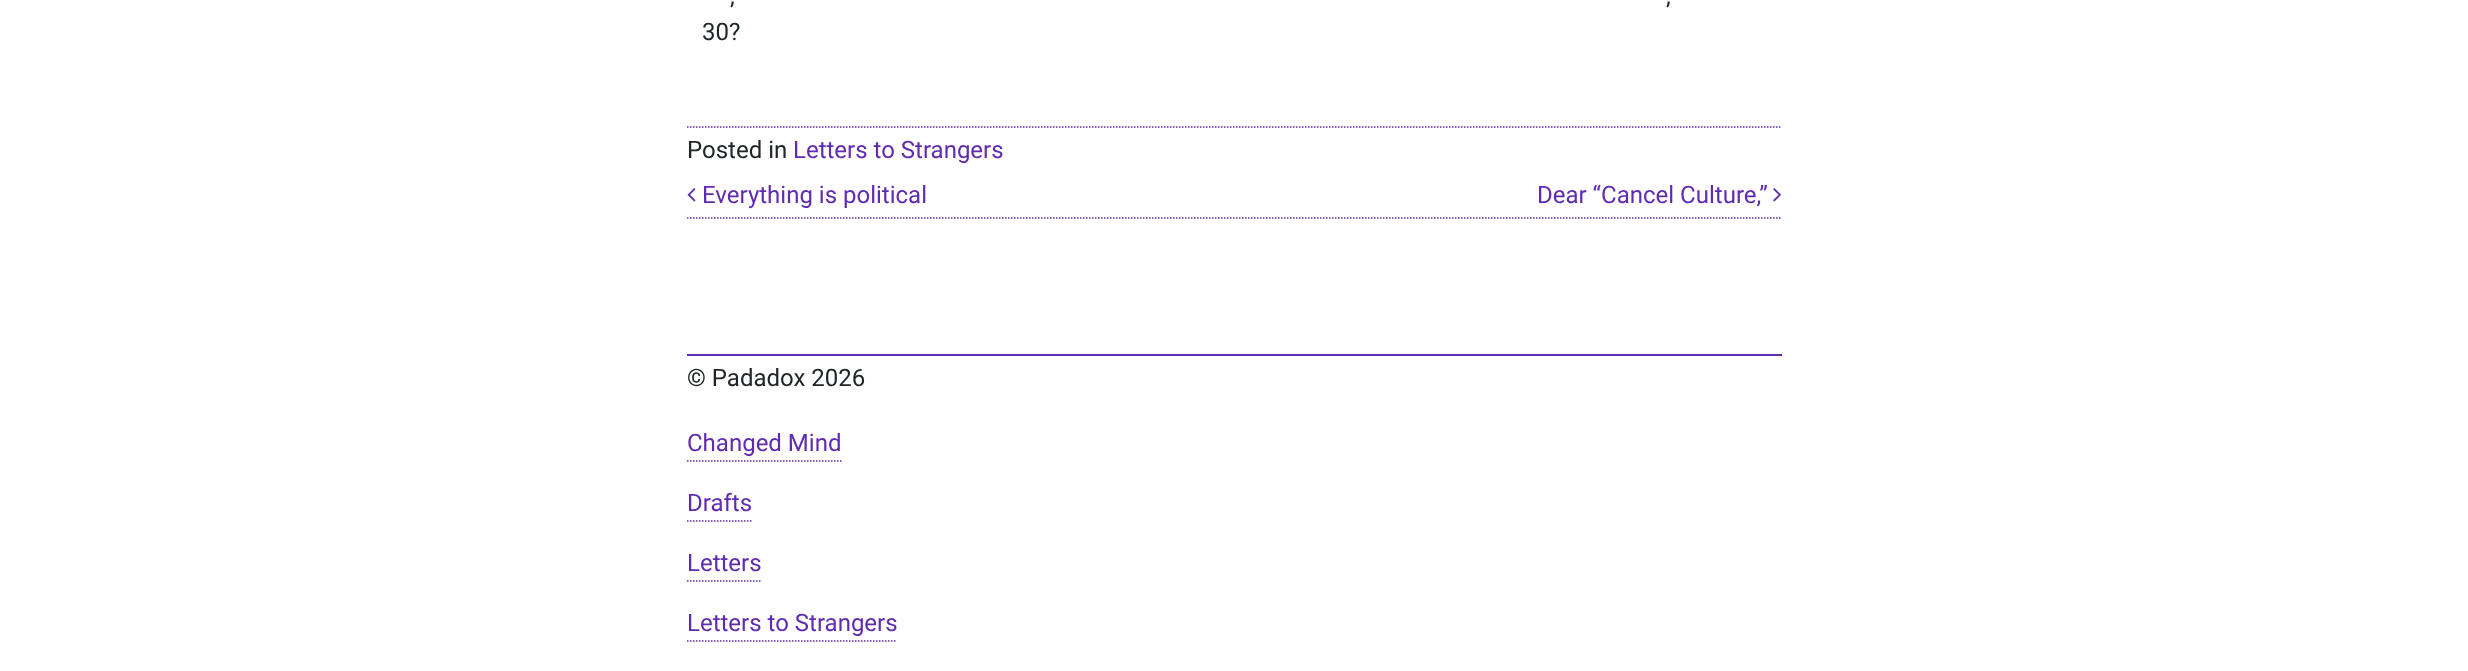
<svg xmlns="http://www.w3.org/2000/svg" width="2468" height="671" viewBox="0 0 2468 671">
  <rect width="100%" height="100%" fill="#ffffff"/>
  <text x="730" y="4" font-family="Roboto" font-size="24" fill="#212529">,</text>
  <text x="1666" y="4" font-family="Roboto" font-size="24" fill="#212529">,</text>
  <text x="702" y="40" font-family="Roboto" font-size="24" fill="#212529">30?</text>
  <path d="M687 127H1782" fill="none" stroke="#602bb0" stroke-width="1.5" stroke-dasharray="1.5 1.5"/>
  <text x="687" y="158" font-family="Roboto" font-size="24" fill="#212529">Posted in</text>
  <text x="793" y="158" font-family="Roboto" font-size="24" fill="#602bb0">Letters to Strangers</text>
  <path d="M687 218H1782" fill="none" stroke="#602bb0" stroke-width="1.5" stroke-dasharray="1.5 1.5"/>
  <image x="687" y="188" width="9" height="14" href="img1.png"/>
  <text x="702" y="203" font-family="Roboto" font-size="24" fill="#602bb0">Everything is political</text>
  <text x="1537" y="203" font-family="Roboto" font-size="24" fill="#602bb0">Dear “Cancel Culture,”</text>
  <image x="1773" y="188" width="8" height="14" href="img2.png"/>
  <rect x="687" y="354" width="1095" height="2" fill="#602bb0"/>
  <text x="687" y="386" font-family="Roboto" font-size="24" fill="#212529">© Padadox 2026</text>
  <text x="687" y="451" font-family="Roboto" font-size="24" fill="#602bb0">Changed Mind</text>
  <path d="M687 461H841.5" fill="none" stroke="#602bb0" stroke-width="1.5" stroke-dasharray="1.5 1.5"/>
  <text x="687" y="511" font-family="Roboto" font-size="24" fill="#602bb0">Drafts</text>
  <path d="M687 521H751.5" fill="none" stroke="#602bb0" stroke-width="1.5" stroke-dasharray="1.5 1.5"/>
  <text x="687" y="571" font-family="Roboto" font-size="24" fill="#602bb0">Letters</text>
  <path d="M687 581H762" fill="none" stroke="#602bb0" stroke-width="1.5" stroke-dasharray="1.5 1.5"/>
  <text x="687" y="631" font-family="Roboto" font-size="24" fill="#602bb0">Letters to Strangers</text>
  <path d="M687 641H897" fill="none" stroke="#602bb0" stroke-width="1.5" stroke-dasharray="1.5 1.5"/>
</svg>
